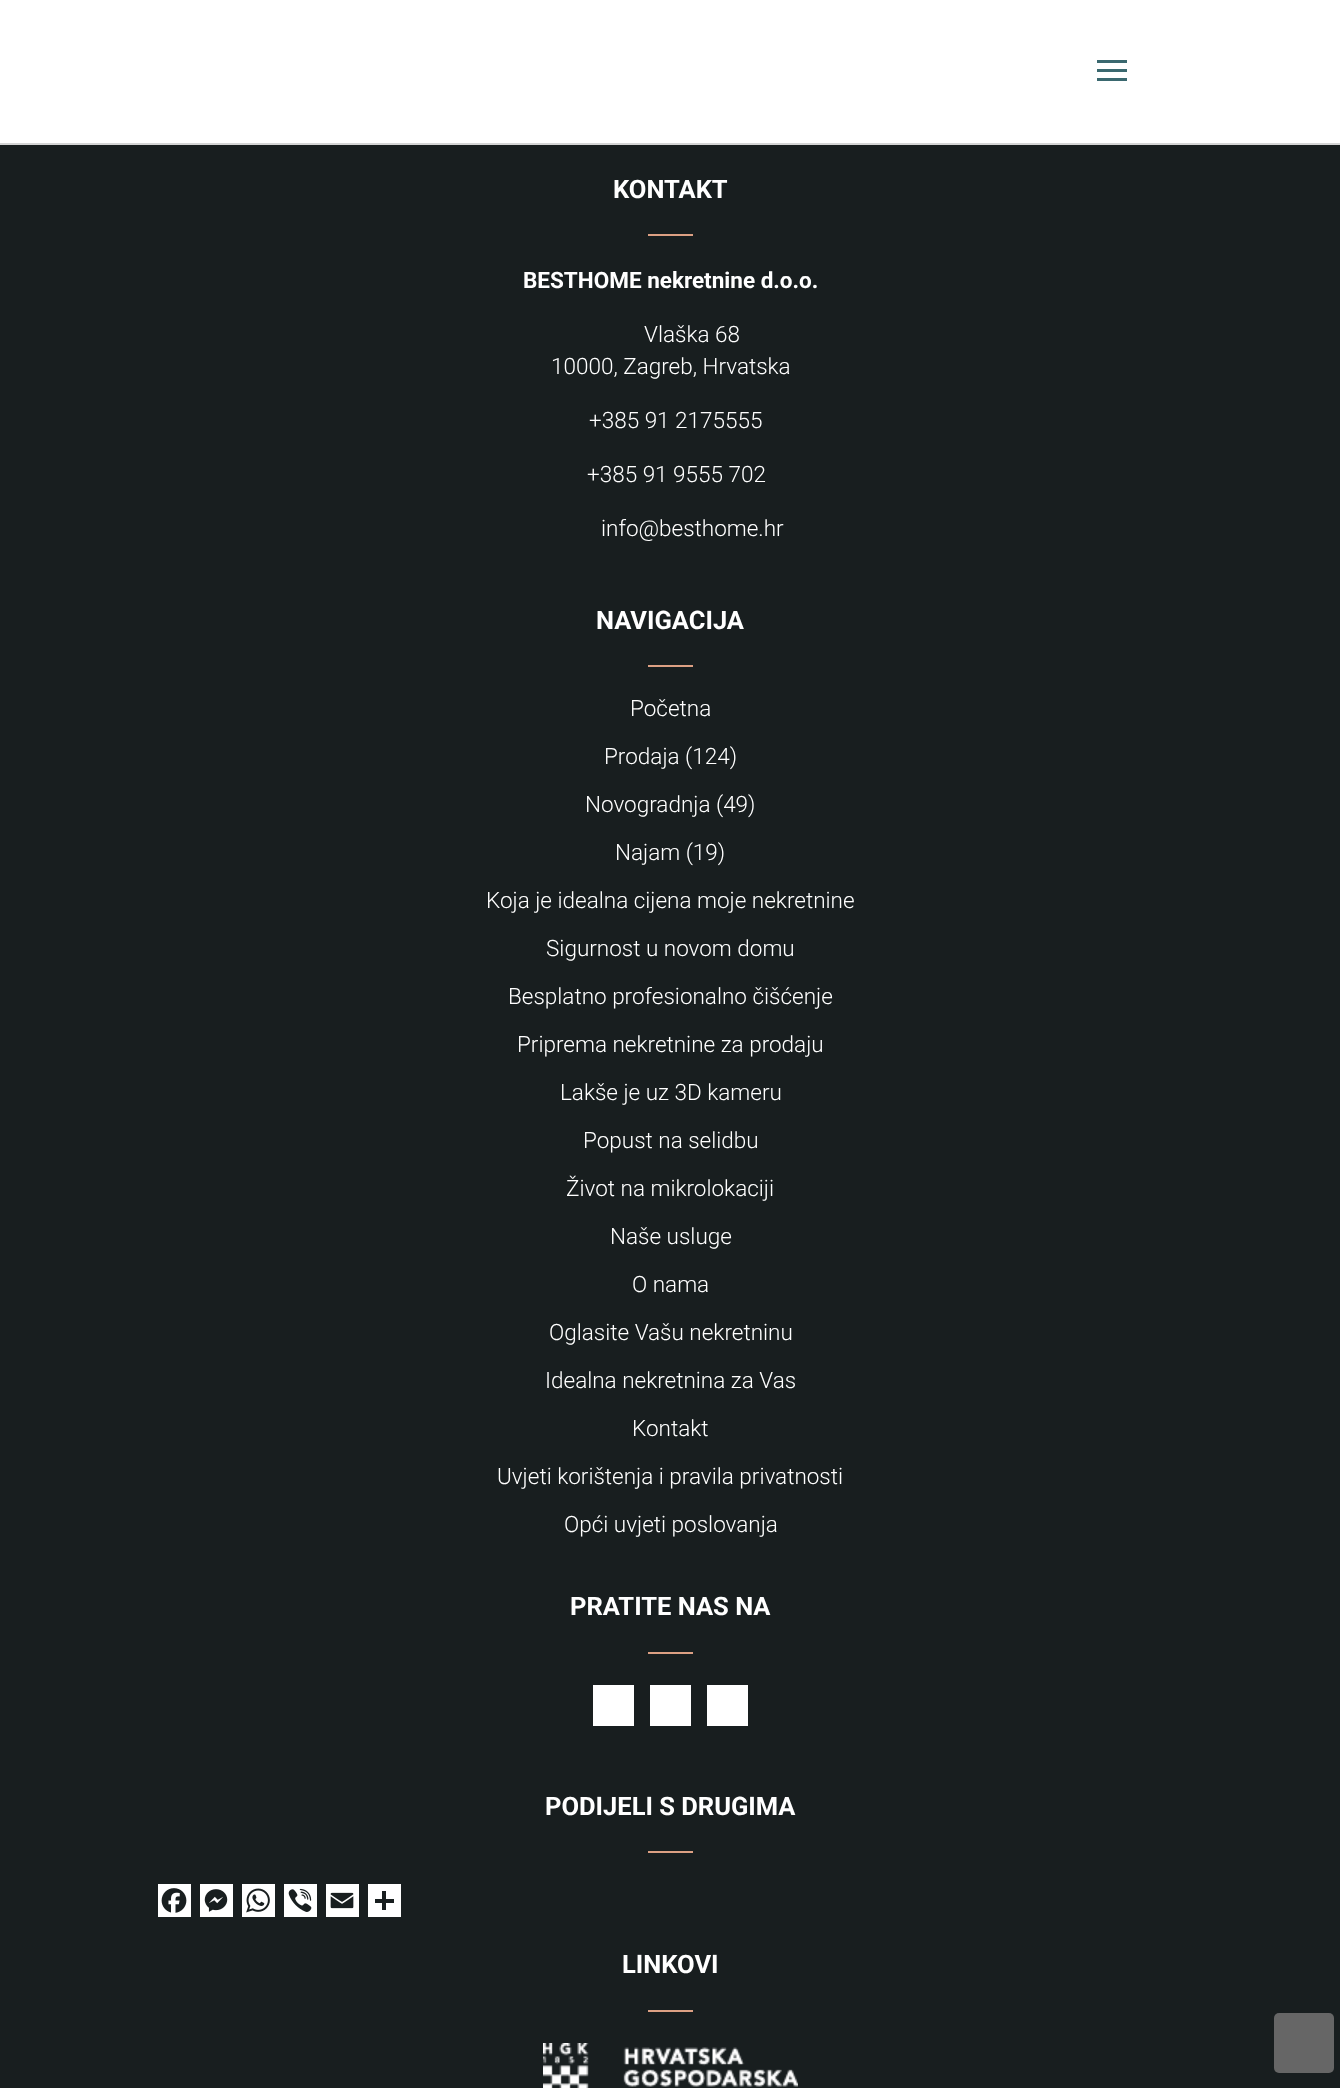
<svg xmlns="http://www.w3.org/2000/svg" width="1340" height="2088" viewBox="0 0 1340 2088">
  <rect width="100%" height="100%" fill="#181e1f"/>
  <rect x="0" y="0" width="1340" height="143" fill="#ffffff"/>
  <rect x="0" y="143" width="1340" height="2" fill="#d4d4d4"/>
  <rect x="1097" y="60" width="30" height="3" fill="#3a686f"/>
  <rect x="1097" y="69" width="30" height="3" fill="#3a686f"/>
  <rect x="1097" y="78" width="30" height="3" fill="#3a686f"/>
  <text x="613" y="198" font-family="Roboto" font-size="25.5" font-weight="bold" fill="#ffffff">KONTAKT</text>
  <rect x="648" y="234" width="45" height="2" fill="#dca083"/>
  <text x="523" y="288" font-family="Roboto" font-size="22.5" font-weight="bold" fill="#ffffff">BESTHOME nekretnine d.o.o.</text>
  <text x="644" y="342" font-family="Roboto" font-size="22.5" font-weight="300" fill="#ffffff">Vlaška 68</text>
  <text x="551" y="374" font-family="Roboto" font-size="22.5" font-weight="300" fill="#ffffff">10000, Zagreb, Hrvatska</text>
  <text x="589" y="428" font-family="Roboto" font-size="22.5" font-weight="300" fill="#ffffff">+385 91 2175555</text>
  <text x="587" y="482" font-family="Roboto" font-size="22.5" font-weight="300" fill="#ffffff">+385 91 9555 702</text>
  <text x="601" y="536" font-family="Roboto" font-size="22.5" font-weight="300" fill="#ffffff">info@besthome.hr</text>
  <text x="596" y="629" font-family="Roboto" font-size="25.5" font-weight="bold" fill="#ffffff">NAVIGACIJA</text>
  <rect x="648" y="665" width="45" height="2" fill="#dca083"/>
  <text x="630" y="716" font-family="Roboto" font-size="22.5" font-weight="300" fill="#ffffff">Početna</text>
  <text x="604" y="764" font-family="Roboto" font-size="22.5" font-weight="300" fill="#ffffff">Prodaja (124)</text>
  <text x="585" y="812" font-family="Roboto" font-size="22.5" font-weight="300" fill="#ffffff">Novogradnja (49)</text>
  <text x="615" y="860" font-family="Roboto" font-size="22.5" font-weight="300" fill="#ffffff">Najam (19)</text>
  <text x="486" y="908" font-family="Roboto" font-size="22.5" font-weight="300" fill="#ffffff">Koja je idealna cijena moje nekretnine</text>
  <text x="546" y="956" font-family="Roboto" font-size="22.5" font-weight="300" fill="#ffffff">Sigurnost u novom domu</text>
  <text x="508" y="1004" font-family="Roboto" font-size="22.5" font-weight="300" fill="#ffffff">Besplatno profesionalno čišćenje</text>
  <text x="517" y="1052" font-family="Roboto" font-size="22.5" font-weight="300" fill="#ffffff">Priprema nekretnine za prodaju</text>
  <text x="560" y="1100" font-family="Roboto" font-size="22.5" font-weight="300" fill="#ffffff">Lakše je uz 3D kameru</text>
  <text x="583" y="1148" font-family="Roboto" font-size="22.5" font-weight="300" fill="#ffffff">Popust na selidbu</text>
  <text x="566" y="1196" font-family="Roboto" font-size="22.5" font-weight="300" fill="#ffffff">Život na mikrolokaciji</text>
  <text x="610" y="1244" font-family="Roboto" font-size="22.5" font-weight="300" fill="#ffffff">Naše usluge</text>
  <text x="632" y="1292" font-family="Roboto" font-size="22.5" font-weight="300" fill="#ffffff">O nama</text>
  <text x="549" y="1340" font-family="Roboto" font-size="22.5" font-weight="300" fill="#ffffff">Oglasite Vašu nekretninu</text>
  <text x="545" y="1388" font-family="Roboto" font-size="22.5" font-weight="300" fill="#ffffff">Idealna nekretnina za Vas</text>
  <text x="632" y="1436" font-family="Roboto" font-size="22.5" font-weight="300" fill="#ffffff">Kontakt</text>
  <text x="497" y="1484" font-family="Roboto" font-size="22.5" font-weight="300" fill="#ffffff">Uvjeti korištenja i pravila privatnosti</text>
  <text x="564" y="1532" font-family="Roboto" font-size="22.5" font-weight="300" fill="#ffffff">Opći uvjeti poslovanja</text>
  <text x="570" y="1615" font-family="Roboto" font-size="25.5" font-weight="bold" fill="#ffffff">PRATITE NAS NA</text>
  <rect x="648" y="1652" width="45" height="2" fill="#dca083"/>
  <rect x="593" y="1685" width="41" height="41" fill="#ffffff"/>
  <rect x="650" y="1685" width="41" height="41" fill="#ffffff"/>
  <rect x="707" y="1685" width="41" height="41" fill="#ffffff"/>
  <text x="545" y="1815" font-family="Roboto" font-size="25.5" font-weight="bold" fill="#ffffff">PODIJELI S DRUGIMA</text>
  <rect x="648" y="1851" width="45" height="2" fill="#dca083"/>
  <rect x="158" y="1884" width="33" height="33" fill="#ffffff"/>
  <image x="161" y="1888" width="26" height="25" href="img1.png"/>
  <rect x="200" y="1884" width="33" height="33" fill="#ffffff"/>
  <image x="204" y="1889" width="24" height="23" href="img2.png"/>
  <rect x="242" y="1884" width="33" height="33" fill="#ffffff"/>
  <image x="246" y="1888" width="24" height="25" href="img3.png"/>
  <rect x="284" y="1884" width="33" height="33" fill="#ffffff"/>
  <image x="288" y="1888" width="24" height="24" href="img4.png"/>
  <rect x="326" y="1884" width="33" height="33" fill="#ffffff"/>
  <image x="330" y="1892" width="24" height="17" href="img5.png"/>
  <rect x="368" y="1884" width="33" height="33" fill="#ffffff"/>
  <rect x="382" y="1891" width="4" height="19" fill="#181e1f"/>
  <rect x="375" y="1899" width="19" height="4" fill="#181e1f"/>
  <text x="622" y="1973" font-family="Roboto" font-size="25.5" font-weight="bold" fill="#ffffff">LINKOVI</text>
  <rect x="648" y="2010" width="45" height="2" fill="#dca083"/>
  <image x="543" y="2043" width="255" height="45" href="img6.png"/>
  <rect x="1274" y="2013" width="60" height="60" rx="5" fill="#666666"/>
</svg>
